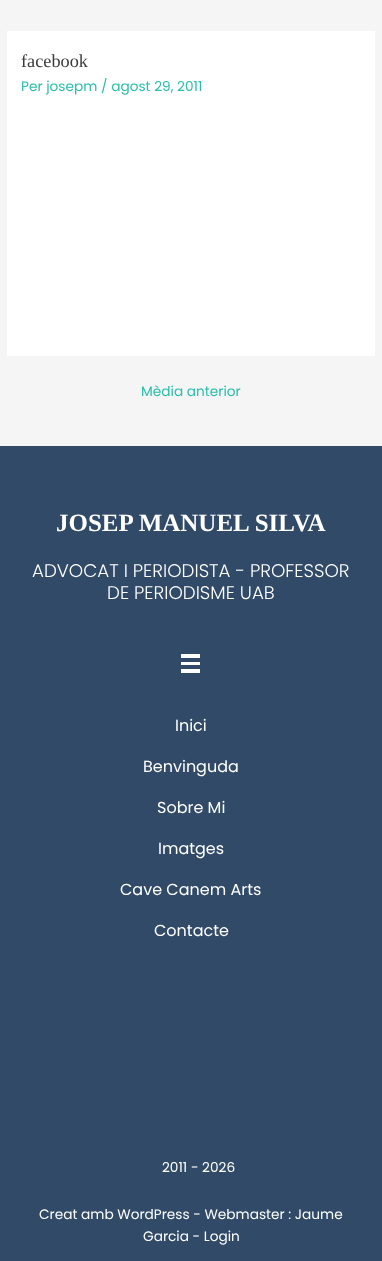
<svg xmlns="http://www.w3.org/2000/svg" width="382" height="1261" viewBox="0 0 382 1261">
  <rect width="100%" height="100%" fill="#f5f5f5"/>
  <rect x="7" y="31" width="368" height="325" fill="#ffffff"/>
  <text x="21" y="67" font-family="Liberation Serif" font-size="18.25" fill="#3a3a3a">facebook</text>
  <text x="21" y="91" font-family="Poppins" font-size="13.7" fill="#28bfab">Per josepm / agost 29, 2011</text>
  <text x="141" y="396" font-family="Poppins" font-size="13.7" fill="#28bfab">Mèdia anterior</text>
  <rect x="0" y="446" width="382" height="815" fill="#304a68"/>
  <text x="56" y="531" font-family="Liberation Serif" font-size="25" font-weight="bold" fill="#ffffff">JOSEP MANUEL SILVA</text>
  <text x="32" y="577" font-family="Poppins" font-size="18.25" font-weight="300" fill="#ffffff">ADVOCAT I PERIODISTA - PROFESSOR</text>
  <text x="107" y="599" font-family="Poppins" font-size="18.25" font-weight="300" fill="#ffffff">DE PERIODISME UAB</text>
  <rect x="181" y="654" width="19" height="4" fill="#ffffff"/>
  <rect x="181" y="662" width="19" height="3" fill="#ffffff"/>
  <rect x="181" y="669" width="19" height="4" fill="#ffffff"/>
  <text x="175" y="731" font-family="Poppins" font-size="16" fill="#ffffff">Inici</text>
  <text x="143" y="772" font-family="Poppins" font-size="16" fill="#ffffff">Benvinguda</text>
  <text x="157" y="813" font-family="Poppins" font-size="16" fill="#ffffff">Sobre Mi</text>
  <text x="158" y="854" font-family="Poppins" font-size="16" fill="#ffffff">Imatges</text>
  <text x="120" y="895" font-family="Poppins" font-size="16" fill="#ffffff">Cave Canem Arts</text>
  <text x="154" y="936" font-family="Poppins" font-size="16" fill="#ffffff">Contacte</text>
  <text x="162" y="1172" font-family="Poppins" font-size="13.7" fill="#ffffff">2011 - 2026</text>
  <text x="39" y="1219" font-family="Poppins" font-size="13.7" fill="#ffffff">Creat amb WordPress - Webmaster : Jaume</text>
  <text x="143" y="1241" font-family="Poppins" font-size="13.7" fill="#ffffff">Garcia - Login</text>
</svg>
